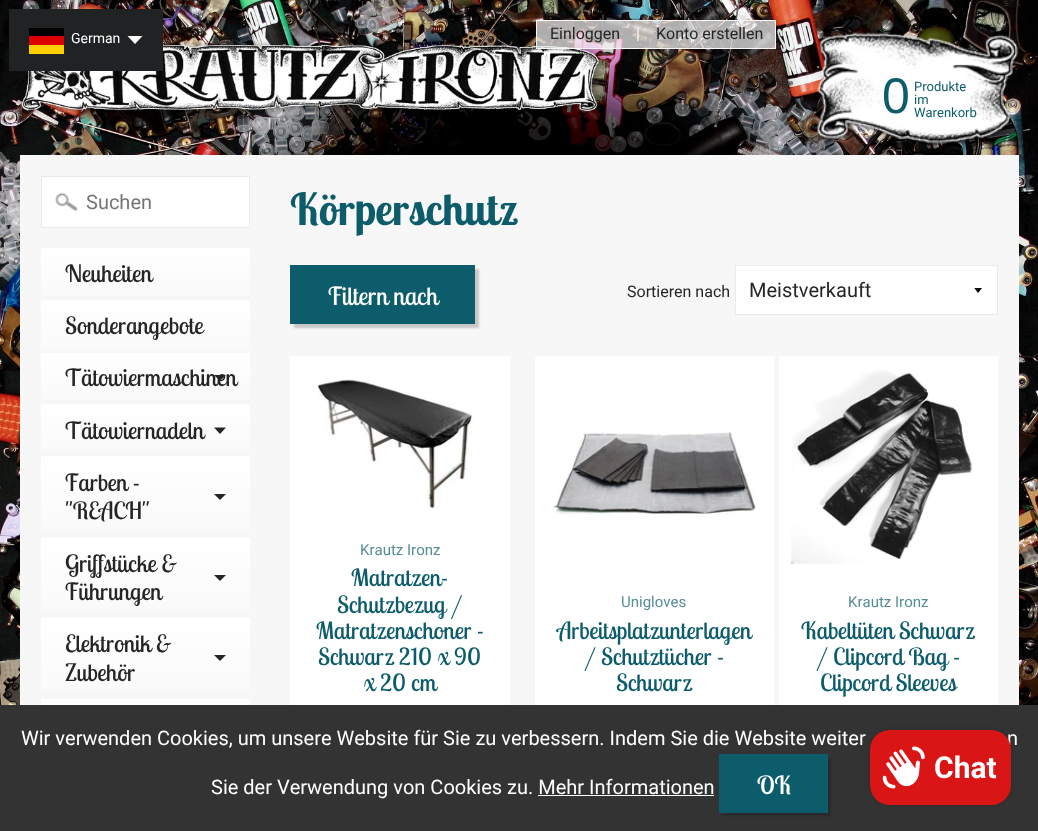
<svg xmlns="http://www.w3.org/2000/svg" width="1038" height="831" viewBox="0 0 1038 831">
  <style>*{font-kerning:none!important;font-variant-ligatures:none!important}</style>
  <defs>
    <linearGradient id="g1" gradientUnits="userSpaceOnUse" x1="146" y1="248" x2="146" y2="300"><stop offset="0" stop-color="#ffffff"/><stop offset="1" stop-color="#f9f9f9"/></linearGradient>
    <linearGradient id="g2" gradientUnits="userSpaceOnUse" x1="146" y1="300" x2="146" y2="353"><stop offset="0" stop-color="#ffffff"/><stop offset="1" stop-color="#f9f9f9"/></linearGradient>
    <linearGradient id="g3" gradientUnits="userSpaceOnUse" x1="146" y1="353" x2="146" y2="404"><stop offset="0" stop-color="#ffffff"/><stop offset="1" stop-color="#f9f9f9"/></linearGradient>
    <linearGradient id="g4" gradientUnits="userSpaceOnUse" x1="146" y1="404" x2="146" y2="456"><stop offset="0" stop-color="#ffffff"/><stop offset="1" stop-color="#f9f9f9"/></linearGradient>
    <linearGradient id="g5" gradientUnits="userSpaceOnUse" x1="146" y1="456" x2="146" y2="538"><stop offset="0" stop-color="#ffffff"/><stop offset="1" stop-color="#f9f9f9"/></linearGradient>
    <linearGradient id="g6" gradientUnits="userSpaceOnUse" x1="146" y1="538" x2="146" y2="618"><stop offset="0" stop-color="#ffffff"/><stop offset="1" stop-color="#f9f9f9"/></linearGradient>
    <linearGradient id="g7" gradientUnits="userSpaceOnUse" x1="146" y1="618" x2="146" y2="699"><stop offset="0" stop-color="#ffffff"/><stop offset="1" stop-color="#f9f9f9"/></linearGradient>
    <linearGradient id="g8" gradientUnits="userSpaceOnUse" x1="146" y1="699" x2="146" y2="751"><stop offset="0" stop-color="#ffffff"/><stop offset="1" stop-color="#f9f9f9"/></linearGradient>
    <filter id="blur1" x="-50%" y="-200%" width="200%" height="500%"><feGaussianBlur stdDeviation="1"/></filter>
    <clipPath id="clip1"><rect x="974" y="288" width="10" height="6"/></clipPath>
    <filter id="blur2" x="-50%" y="-200%" width="200%" height="500%"><feGaussianBlur stdDeviation="3"/></filter>
  </defs>
  <rect width="100%" height="100%" fill="#ffffff"/>
  <image x="0" y="0" width="1038" height="705" href="img1.png"/>
  <image x="20" y="41" width="584" height="73" href="img2.png"/>
  <rect x="536.5" y="20.5" width="239" height="28" fill="#f7f7f7" fill-opacity="0.7" stroke="#f7f7f7"/>
  <text x="550" y="39" font-family="Roboto" font-size="16" fill="#252525">Einloggen</text>
  <text x="636" y="39" font-family="Roboto" font-size="16" fill="#f7f7f7">|</text>
  <text x="656" y="39" font-family="Roboto" font-size="16" fill="#252525">Konto erstellen</text>
  <image x="817" y="32" width="201" height="114" href="img3.png"/>
  <text x="882" y="113" font-family="Liberation Sans" font-size="50" fill="#0d5c6b">0</text>
  <text x="914" y="91" font-family="Roboto" font-size="13" fill="#0d5c6b">Produkte</text>
  <text x="914" y="104" font-family="Roboto" font-size="13" fill="#0d5c6b">im</text>
  <text x="914" y="117" font-family="Roboto" font-size="13" fill="#0d5c6b">Warenkorb</text>
  <rect x="20" y="155" width="999" height="550" fill="#f7f7f7"/>
  <rect x="42" y="177" width="207" height="50" fill="#ffffff"/>
  <image x="55" y="192" width="23" height="20" href="img4.png"/>
  <rect x="41.5" y="176.5" width="208" height="51" fill="none" stroke="#eaeaea"/>
  <text x="86" y="209" font-family="Roboto" font-size="20" fill="#757575">Suchen</text>
  <rect x="41" y="248" width="209" height="48" fill="url(#g1)"/>
  <text x="65" y="282" font-family="Lobster Two" font-size="23.75" fill="#252525">Neuheiten</text>
  <rect x="41" y="300" width="209" height="49" fill="url(#g2)"/>
  <text x="65" y="334" font-family="Lobster Two" font-size="23.75" fill="#252525">Sonderangebote</text>
  <rect x="41" y="353" width="209" height="47" fill="url(#g3)"/>
  <text x="65" y="386" font-family="Lobster Two" font-size="23.75" fill="#252525">Tätowiermaschinen</text>
  <path d="M214 375H226L220 381Z" fill="#252525"/>
  <rect x="41" y="404" width="209" height="48" fill="url(#g4)"/>
  <text x="65" y="439" font-family="Lobster Two" font-size="23.75" fill="#252525">Tätowiernadeln</text>
  <path d="M214 427.5H226L220 434Z" fill="#252525"/>
  <rect x="41" y="456" width="209" height="75" fill="url(#g5)"/>
  <text x="65" y="491" font-family="Lobster Two" font-size="23.75" fill="#252525">Farben -</text>
  <path d="M214 494H226L220 500Z" fill="#252525"/>
  <text x="65" y="519" font-family="Lobster Two" font-size="23.75" fill="#252525">"REACH"</text>
  <rect x="41" y="538" width="209" height="73" fill="url(#g6)"/>
  <text x="65" y="572" font-family="Lobster Two" font-size="23.75" fill="#252525">Griffstücke &amp;</text>
  <path d="M214 575H226L220 581Z" fill="#252525"/>
  <text x="65" y="600" font-family="Lobster Two" font-size="23.75" fill="#252525">Führungen</text>
  <rect x="41" y="618" width="209" height="74" fill="url(#g7)"/>
  <text x="65" y="652" font-family="Lobster Two" font-size="23.75" fill="#252525">Elektronik &amp;</text>
  <path d="M214 655H226L220 661Z" fill="#252525"/>
  <text x="65" y="681" font-family="Lobster Two" font-size="23.75" fill="#252525">Zubehör</text>
  <rect x="41" y="699" width="209" height="6" fill="url(#g8)"/>
  <text x="290" y="225" font-family="Lobster Two" font-size="44" font-weight="bold" fill="#0d5c6b">Körperschutz</text>
  <rect x="294" y="269" width="185" height="59" fill="#000000" fill-opacity="0.2" filter="url(#blur1)"/>
  <rect x="290" y="265" width="185" height="59" fill="#0d5c6b"/>
  <text x="328" y="305" font-family="Lobster Two" font-size="25" fill="#ffffff">Filtern nach</text>
  <text x="627" y="297" font-family="Roboto" font-size="16" fill="#252525">Sortieren nach</text>
  <rect x="736" y="266" width="261" height="48" fill="#ffffff"/>
  <g clip-path="url(#clip1)">
    <path d="M974 287.5L978 293L982.5 287.5Z" fill="#000000"/>
  </g>
  <rect x="735.5" y="265.5" width="262" height="49" fill="none" stroke="#eaeaea"/>
  <text x="749" y="297" font-family="Roboto" font-size="20" fill="#252525">Meistverkauft</text>
  <rect x="290" y="356" width="220" height="349" fill="#ffffff"/>
  <image x="317" y="379" width="156" height="130" href="img5.png"/>
  <text x="360" y="555" font-family="Roboto" font-size="15" fill="#568d97">Krautz Ironz</text>
  <text x="351" y="586" font-family="Lobster Two" font-size="23.75" fill="#0d5c6b">Matratzen-</text>
  <text x="337" y="613" font-family="Lobster Two" font-size="23.75" fill="#0d5c6b">Schutzbezug /</text>
  <text x="316" y="639" font-family="Lobster Two" font-size="23.75" fill="#0d5c6b">Matratzenschoner -</text>
  <text x="318" y="665" font-family="Lobster Two" font-size="23.75" fill="#0d5c6b">Schwarz 210 x 90</text>
  <text x="363" y="691" font-family="Lobster Two" font-size="23.75" fill="#0d5c6b">x 20 cm</text>
  <rect x="535" y="356" width="239" height="349" fill="#ffffff"/>
  <image x="552" y="432" width="205" height="83" href="img6.png"/>
  <text x="621" y="607" font-family="Roboto" font-size="15" fill="#568d97">Unigloves</text>
  <text x="557" y="639" font-family="Lobster Two" font-size="23.75" fill="#0d5c6b">Arbeitsplatzunterlagen</text>
  <text x="584" y="665" font-family="Lobster Two" font-size="23.75" fill="#0d5c6b">/ Schutztücher -</text>
  <text x="616" y="691" font-family="Lobster Two" font-size="23.75" fill="#0d5c6b">Schwarz</text>
  <rect x="779" y="356" width="219" height="349" fill="#ffffff"/>
  <image x="791" y="370" width="182" height="194" href="img7.png"/>
  <text x="848" y="607" font-family="Roboto" font-size="15" fill="#568d97">Krautz Ironz</text>
  <text x="801" y="639" font-family="Lobster Two" font-size="23.75" fill="#0d5c6b">Kabeltüten Schwarz</text>
  <text x="816" y="665" font-family="Lobster Two" font-size="23.75" fill="#0d5c6b">/ Clipcord Bag -</text>
  <text x="820" y="691" font-family="Lobster Two" font-size="23.75" fill="#0d5c6b">Clipcord Sleeves</text>
  <rect x="9" y="9" width="154" height="62" fill="#202223"/>
  <rect x="29" y="45" width="35" height="9" fill="#ffce00"/>
  <rect x="29" y="28" width="35" height="8" fill="#000000"/>
  <rect x="29" y="36" width="35" height="9" fill="#dd0000"/>
  <text x="71" y="43" font-family="Roboto" font-size="14" fill="#ffffff">German</text>
  <path d="M127.5 36H142.5L135 44Z" fill="#ffffff"/>
  <rect x="0" y="705" width="1038" height="126" fill="#333333"/>
  <text x="21" y="745" font-family="Roboto" font-size="20" fill="#ffffff">Wir verwenden Cookies, um unsere Website für Sie zu verbessern. Indem Sie die Website weiter</text>
  <text x="1007" y="745" font-family="Roboto" font-size="20" fill="#ffffff">n</text>
  <text x="211" y="794" font-family="Roboto" font-size="20" fill="#ffffff">Sie der Verwendung von Cookies zu. Mehr Informationen</text>
  <rect x="723" y="758" width="108" height="58" fill="#000000" fill-opacity="0.2" filter="url(#blur1)"/>
  <rect x="719" y="754" width="109" height="59" fill="#0d5c6b"/>
  <text x="757" y="794" font-family="Lobster Two" font-size="25" fill="#ffffff">OK</text>
  <rect x="538" y="795" width="176" height="1" fill="#ffffff"/>
  <rect x="870" y="730" width="141" height="75" rx="20" fill="#000000" fill-opacity="0.15" filter="url(#blur2)"/>
  <rect x="870" y="730" width="141" height="75" rx="20" fill="#d91515"/>
  <image x="882" y="746" width="43" height="43" href="img8.png"/>
  <text x="934" y="778" font-family="Roboto" font-size="30" font-weight="bold" fill="#ffffff">Chat</text>
</svg>
